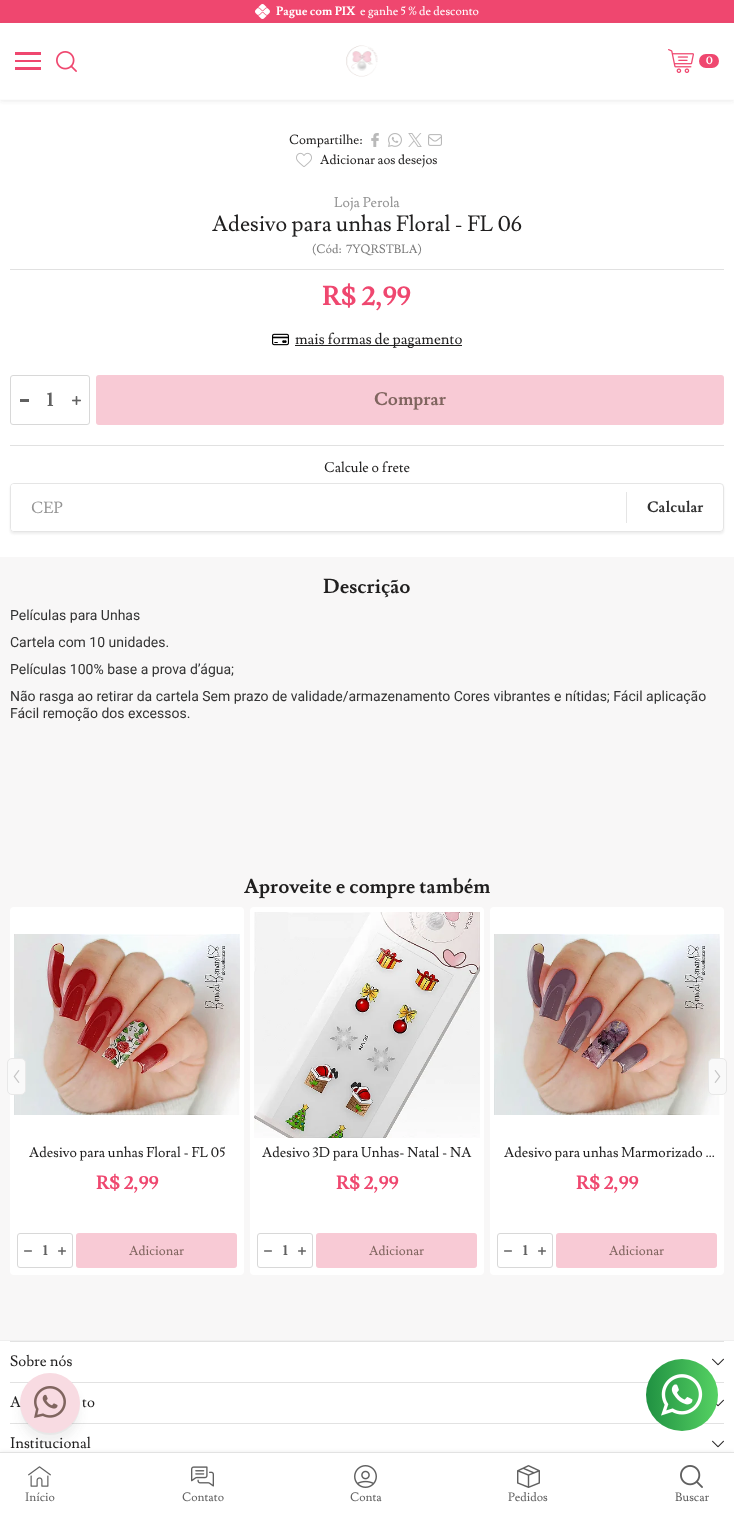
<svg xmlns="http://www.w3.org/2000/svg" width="734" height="1523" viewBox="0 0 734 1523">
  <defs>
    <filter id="blur1" x="-50%" y="-200%" width="200%" height="500%"><feGaussianBlur stdDeviation="2"/></filter>
    <clipPath id="clip1"><path d="M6 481H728V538H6ZM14 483H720C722 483 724 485 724 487V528C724 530 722 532 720 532H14C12 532 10 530 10 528V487C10 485 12 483 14 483Z" clip-rule="evenodd"/></clipPath>
    <filter id="blur2" x="-50%" y="-200%" width="200%" height="500%"><feGaussianBlur stdDeviation="1"/></filter>
    <filter id="blur3" x="-50%" y="-200%" width="200%" height="500%"><feGaussianBlur stdDeviation="4"/></filter>
    <filter id="blur4" x="-50%" y="-200%" width="200%" height="500%"><feGaussianBlur stdDeviation="0.5"/></filter>
    <linearGradient id="g1" gradientUnits="userSpaceOnUse" x1="646" y1="1395" x2="718" y2="1395"><stop offset="0" stop-color="#209142"/><stop offset="1" stop-color="#56d263"/></linearGradient>
  </defs>
  <rect width="100%" height="100%" fill="#f8f7f7"/>
  <rect x="0" y="0" width="734" height="23" fill="#ef476f"/>
  <image x="255" y="4" width="15" height="15" href="img1.png"/>
  <text x="276" y="15" font-family="Lusitana" font-size="12" font-weight="bold" fill="#ffffff">Pague com PIX</text>
  <text x="360" y="15" font-family="Lusitana" font-size="12" fill="#ffffff">e ganhe 5 % de desconto</text>
  <rect x="0" y="100" width="734" height="457" fill="#ffffff"/>
  <rect x="0" y="24" width="734" height="77" fill="#525252" fill-opacity="0.13" filter="url(#blur1)"/>
  <rect x="0" y="23" width="734" height="76" fill="#ffffff"/>
  <rect x="0" y="99" width="734" height="1" fill="#fcfcfc"/>
  <rect x="15" y="67" width="26" height="3" fill="#ef476f"/>
  <rect x="15" y="60" width="26" height="2" fill="#ef476f"/>
  <rect x="15" y="52" width="26" height="3" fill="#ef476f"/>
  <image x="56" y="51" width="21" height="21" href="img2.png"/>
  <image x="346" y="45" width="32" height="32" href="img3.png"/>
  <image x="668" y="49" width="26" height="24" href="img4.png"/>
  <rect x="699" y="54" width="20" height="14" rx="7" fill="#ef476f"/>
  <text x="706" y="64" font-family="Lusitana" font-size="11" font-weight="bold" fill="#ffffff">0</text>
  <text x="289" y="144" font-family="Lusitana" font-size="13" fill="#201f1f">Compartilhe:</text>
  <image x="371" y="133" width="8" height="14" href="img5.png"/>
  <image x="388" y="133" width="14" height="14" href="img6.png"/>
  <image x="408" y="133" width="14" height="14" href="img7.png"/>
  <image x="428" y="134" width="14" height="12" href="img8.png"/>
  <image x="296" y="152" width="16" height="15" href="img9.png"/>
  <text x="320" y="164" font-family="Lusitana" font-size="13" fill="#201f1f">Adicionar aos desejos</text>
  <rect x="10" y="269" width="714" height="1" fill="#e1e1e1"/>
  <text x="334" y="207" font-family="Lusitana" font-size="14" fill="#949494">Loja Perola</text>
  <text x="212" y="231" font-family="Lusitana" font-size="22" fill="#201f1f">Adesivo para unhas Floral - FL 06</text>
  <text x="312" y="253" font-family="Lusitana" font-size="12" fill="#7b7b7b">(Cód:</text>
  <text x="346" y="253" font-family="Lusitana" font-size="12" fill="#7b7b7b">7YQRSTBLA)</text>
  <text x="322" y="305" font-family="Lusitana" font-size="27" font-weight="bold" fill="#ef476f">R$ 2,99</text>
  <image x="272" y="333" width="17" height="13" href="img10.png"/>
  <rect x="295" y="345" width="167" height="1" fill="#201f1f"/>
  <text x="295" y="344" font-family="Lusitana" font-size="15" fill="#201f1f">mais formas de pagamento</text>
  <rect x="10.5" y="375.5" width="79" height="49" rx="2.5" fill="none" stroke="#d8d8d8"/>
  <rect x="20" y="399" width="9" height="3" fill="#616161"/>
  <text x="47" y="406" font-family="Lusitana" font-size="19" font-weight="bold" fill="#616161">1</text>
  <image x="72" y="396" width="9" height="9" href="img11.png"/>
  <rect x="96" y="375" width="628" height="50" rx="3" fill="#f8cad5"/>
  <text x="374" y="405" font-family="Lusitana" font-size="18" font-weight="bold" fill="#80655f">Comprar</text>
  <rect x="10" y="445" width="714" height="1" fill="#e1e1e1"/>
  <text x="324" y="472" font-family="Lusitana" font-size="14" fill="#201f1f">Calcule o frete</text>
  <g clip-path="url(#clip1)">
    <rect x="10" y="485" width="714" height="49" rx="4" fill="#cdcdcd" fill-opacity="0.35" filter="url(#blur2)"/>
  </g>
  <rect x="10.5" y="483.5" width="713" height="48" rx="3.5" fill="none" stroke="#e5e5e5"/>
  <rect x="11" y="484" width="615" height="47" rx="3" fill="#ffffff"/>
  <text x="31" y="513" font-family="Lusitana" font-size="16" fill="#949494">CEP</text>
  <rect x="626" y="492" width="1" height="31" fill="#e5e5e5"/>
  <text x="647" y="512" font-family="Lusitana" font-size="15" font-weight="bold" fill="#333333">Calcular</text>
  <text x="323" y="593" font-family="Lusitana" font-size="20" font-weight="bold" fill="#201f1f">Descrição</text>
  <text x="10" y="620" font-family="Roboto" font-size="14" fill="#333333">Películas para Unhas</text>
  <text x="10" y="647" font-family="Roboto" font-size="14" fill="#333333">Cartela com 10 unidades.</text>
  <text x="10" y="674" font-family="Roboto" font-size="14" fill="#333333">Películas 100% base a prova d’água;</text>
  <text x="10" y="701" font-family="Roboto" font-size="14" fill="#333333">Não rasga ao retirar da cartela Sem prazo de validade/armazenamento Cores vibrantes e nítidas; Fácil aplicação</text>
  <text x="10" y="718" font-family="Roboto" font-size="14" fill="#333333">Fácil remoção dos excessos.</text>
  <text x="244" y="893" font-family="Lusitana" font-size="20" font-weight="bold" fill="#201f1f">Aproveite e compre também</text>
  <rect x="10" y="907" width="234" height="368" rx="4" fill="#ffffff"/>
  <image x="14" y="934" width="226" height="181" href="img14.png"/>
  <rect x="7.5" y="1058.5" width="18" height="36" rx="4.5" fill="#f9f9f9" stroke="#e8e8e8"/>
  <image x="13" y="1070" width="7" height="13" href="img12.png"/>
  <rect x="490" y="907" width="234" height="368" rx="4" fill="#ffffff"/>
  <image x="494" y="934" width="226" height="181" href="img18.png"/>
  <rect x="708.5" y="1058.5" width="18" height="36" rx="4.5" fill="#f9f9f9" stroke="#e8e8e8"/>
  <image x="714" y="1070" width="7" height="13" href="img13.png"/>
  <text x="29" y="1157" font-family="Lusitana" font-size="14" fill="#201f1f">Adesivo para unhas Floral - FL 05</text>
  <text x="96" y="1189" font-family="Lusitana" font-size="19" font-weight="bold" fill="#ef476f">R$ 2,99</text>
  <rect x="17.5" y="1233.5" width="55" height="34" rx="2.5" fill="none" stroke="#d8d8d8"/>
  <image x="24" y="1250" width="8" height="2" href="img15.png"/>
  <text x="43" y="1255" font-family="Lusitana" font-size="14" font-weight="bold" fill="#616161">1</text>
  <image x="58" y="1247" width="8" height="8" href="img16.png"/>
  <rect x="76" y="1233" width="161" height="35" rx="3" fill="#f8cad5"/>
  <text x="129" y="1255" font-family="Lusitana" font-size="13" fill="#80655f">Adicionar</text>
  <rect x="250" y="907" width="234" height="368" rx="4" fill="#ffffff"/>
  <image x="254" y="912" width="226" height="226" href="img17.png"/>
  <text x="262" y="1157" font-family="Lusitana" font-size="14" fill="#201f1f">Adesivo 3D para Unhas- Natal - NA</text>
  <text x="336" y="1189" font-family="Lusitana" font-size="19" font-weight="bold" fill="#ef476f">R$ 2,99</text>
  <rect x="257.5" y="1233.5" width="55" height="34" rx="2.5" fill="none" stroke="#d8d8d8"/>
  <image x="264" y="1250" width="8" height="2" href="img15.png"/>
  <text x="283" y="1255" font-family="Lusitana" font-size="14" font-weight="bold" fill="#616161">1</text>
  <image x="298" y="1247" width="8" height="8" href="img16.png"/>
  <rect x="316" y="1233" width="161" height="35" rx="3" fill="#f8cad5"/>
  <text x="369" y="1255" font-family="Lusitana" font-size="13" fill="#80655f">Adicionar</text>
  <text x="504" y="1157" font-family="Lusitana" font-size="14" fill="#201f1f">Adesivo para unhas Marmorizado …</text>
  <text x="576" y="1189" font-family="Lusitana" font-size="19" font-weight="bold" fill="#ef476f">R$ 2,99</text>
  <rect x="497.5" y="1233.5" width="55" height="34" rx="2.5" fill="none" stroke="#d8d8d8"/>
  <image x="504" y="1250" width="8" height="2" href="img15.png"/>
  <text x="523" y="1255" font-family="Lusitana" font-size="14" font-weight="bold" fill="#616161">1</text>
  <image x="538" y="1247" width="8" height="8" href="img16.png"/>
  <rect x="556" y="1233" width="161" height="35" rx="3" fill="#f8cad5"/>
  <text x="609" y="1255" font-family="Lusitana" font-size="13" fill="#80655f">Adicionar</text>
  <rect x="0" y="1340" width="734" height="1" fill="#efefef"/>
  <rect x="0" y="1341" width="734" height="111" fill="#ffffff"/>
  <rect x="10" y="1341" width="714" height="1" fill="#e2e2e2"/>
  <text x="10" y="1366" font-family="Lusitana" font-size="15" fill="#201f1f">Sobre nós</text>
  <image x="712" y="1358" width="12" height="8" href="img19.png"/>
  <rect x="10" y="1382" width="714" height="1" fill="#e2e2e2"/>
  <text x="10" y="1407" font-family="Lusitana" font-size="15" fill="#201f1f">A</text>
  <text x="82" y="1407" font-family="Lusitana" font-size="15" fill="#201f1f">to</text>
  <image x="716" y="1399" width="8" height="8" href="img20.png"/>
  <rect x="10" y="1423" width="714" height="1" fill="#e2e2e2"/>
  <text x="10" y="1448" font-family="Lusitana" font-size="15" fill="#201f1f">Institucional</text>
  <image x="712" y="1440" width="12" height="8" href="img19.png"/>
  <rect x="20" y="1383" width="60" height="60" rx="30" fill="#676767" fill-opacity="0.1" filter="url(#blur3)"/>
  <rect x="20" y="1375" width="60" height="60" rx="30" fill="#000000" fill-opacity="0.04" filter="url(#blur4)"/>
  <circle cx="50" cy="1403" r="30" fill="#f8dbe2"/>
  <image x="34" y="1386" width="32" height="32" href="img21.png"/>
  <circle cx="682" cy="1395" r="36" fill="url(#g1)"/>
  <image x="661" y="1374" width="42" height="42" href="img22.png"/>
  <rect x="0" y="1452" width="734" height="71" fill="#525252" fill-opacity="0.08" filter="url(#blur1)"/>
  <rect x="0" y="1453" width="734" height="70" fill="#ffffff"/>
  <rect x="0" y="1452" width="734" height="1" fill="#e2e2e2"/>
  <image x="28" y="1466" width="23" height="21" href="img23.png"/>
  <text x="25" y="1501" font-family="Lusitana" font-size="12" fill="#616161">Início</text>
  <image x="191" y="1466" width="23" height="21" href="img24.png"/>
  <text x="182" y="1501" font-family="Lusitana" font-size="12" fill="#616161">Contato</text>
  <image x="354" y="1465" width="23" height="23" href="img25.png"/>
  <text x="350" y="1501" font-family="Lusitana" font-size="12" fill="#616161">Conta</text>
  <image x="517" y="1465" width="23" height="23" href="img26.png"/>
  <text x="508" y="1501" font-family="Lusitana" font-size="12" fill="#616161">Pedidos</text>
  <image x="680" y="1465" width="23" height="23" href="img27.png"/>
  <text x="675" y="1501" font-family="Lusitana" font-size="12" fill="#616161">Buscar</text>
</svg>
